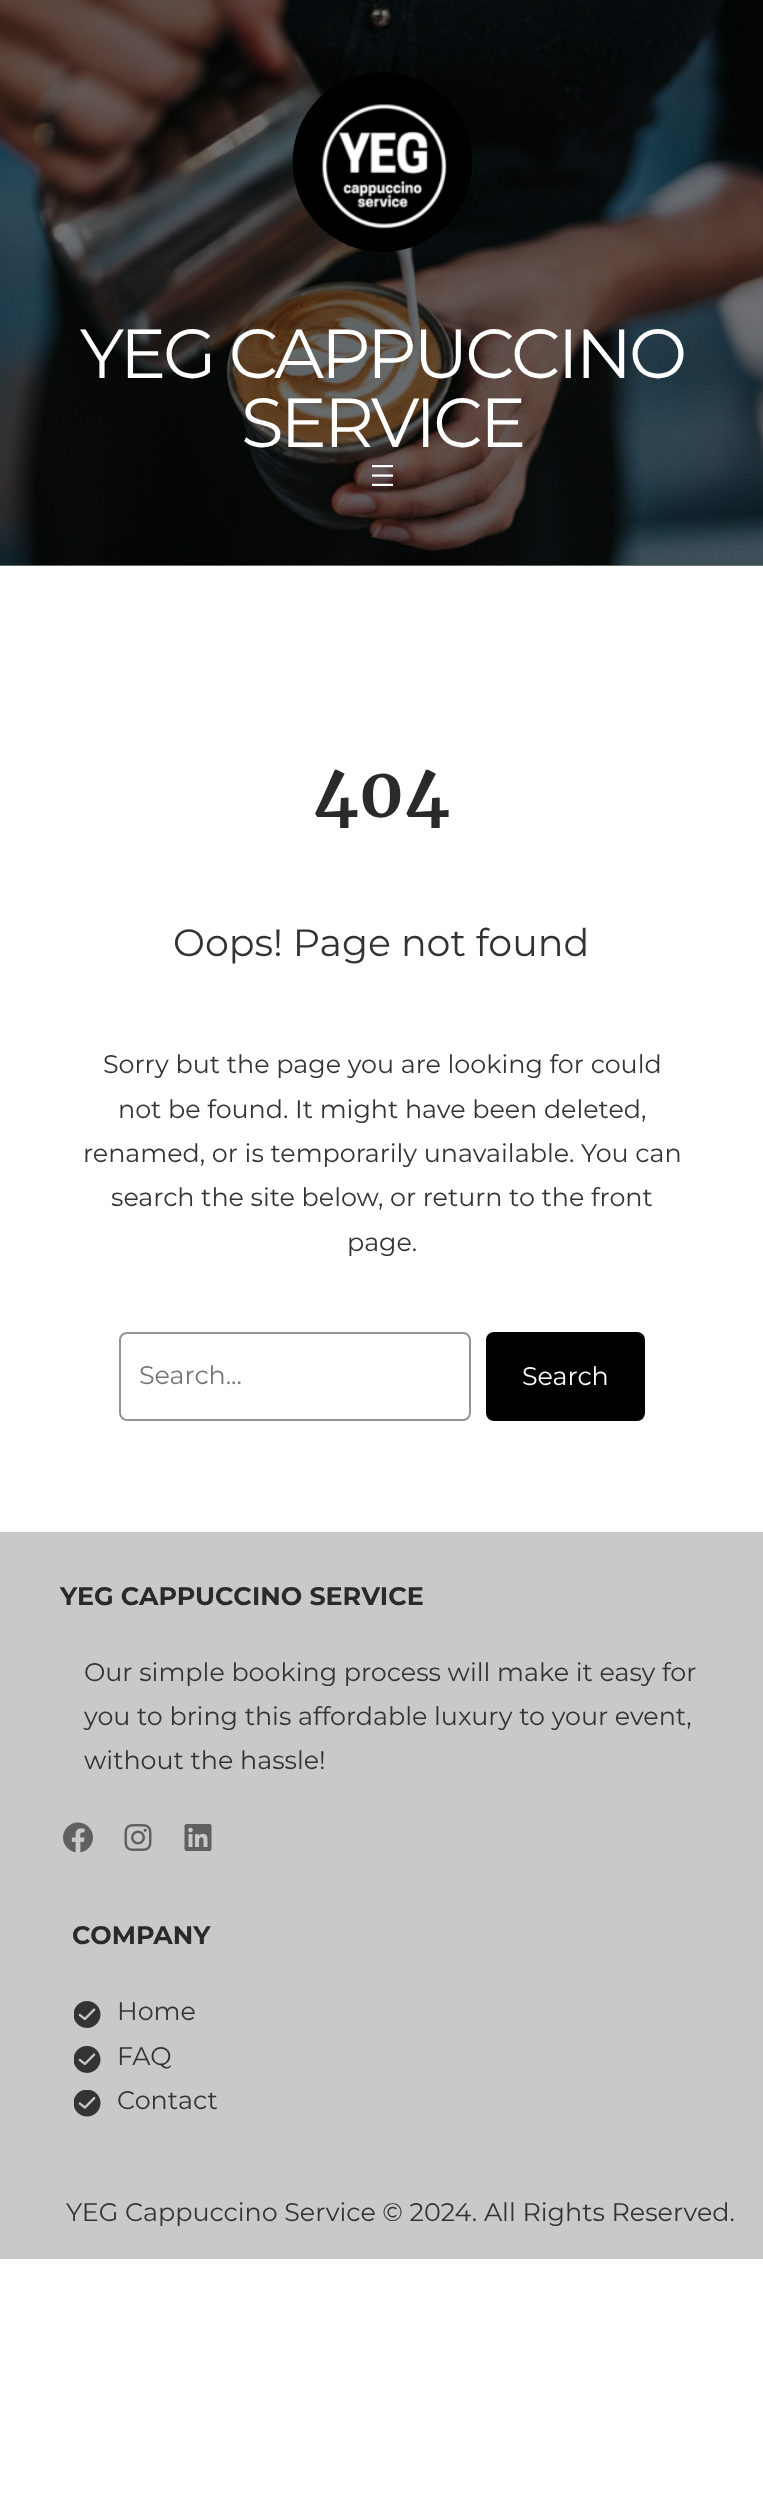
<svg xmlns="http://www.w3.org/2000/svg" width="763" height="2519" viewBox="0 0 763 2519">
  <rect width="100%" height="100%" fill="#ffffff"/>
  <rect x="0" y="565" width="763" height="1" fill="#808080"/>
  <image x="0" y="0" width="763" height="566" href="img1.png"/>
  <image x="292" y="72" width="180" height="180" href="img2.png"/>
  <text x="80" y="378" font-family="Montserrat" font-size="69.25" letter-spacing="-3" fill="#ffffff">YEG CAPPUCCINO</text>
  <text x="241" y="447" font-family="Montserrat" font-size="69.25" letter-spacing="-3" fill="#ffffff">SERVICE</text>
  <image x="372" y="465" width="21" height="21" href="img3.png"/>
  <text x="313" y="817" font-family="Merriweather" font-size="69.25" font-weight="bold" fill="#2a2a2a">404</text>
  <text x="173" y="956" font-family="Montserrat" font-size="38" fill="#333333">Oops! Page not found</text>
  <text x="103" y="1073" font-family="Montserrat" font-size="25.4" fill="#333333">Sorry but the page you are looking for could</text>
  <text x="118" y="1118" font-family="Montserrat" font-size="25.4" fill="#333333">not be found. It might have been deleted,</text>
  <text x="83" y="1162" font-family="Montserrat" font-size="25.4" fill="#333333">renamed, or is temporarily unavailable. You can</text>
  <text x="111" y="1206" font-family="Montserrat" font-size="25.4" fill="#333333">search the site below, or return to the front</text>
  <text x="347" y="1251" font-family="Montserrat" font-size="25.4" fill="#333333">page.</text>
  <rect x="120" y="1333" width="350" height="87" rx="7" fill="none" stroke="#949494" stroke-width="2"/>
  <text x="139" y="1384" font-family="Montserrat" font-size="25.4" fill="#757575">Search...</text>
  <rect x="486" y="1332" width="159" height="89" rx="8" fill="#000000"/>
  <text x="522" y="1385" font-family="Montserrat" font-size="25.4" fill="#ffffff">Search</text>
  <rect x="0" y="1532" width="763" height="727" fill="#c9c9c9"/>
  <text x="60" y="1605" font-family="Montserrat" font-size="25.4" font-weight="bold" fill="#2a2a2a">YEG CAPPUCCINO SERVICE</text>
  <text x="84" y="1681" font-family="Montserrat" font-size="25.4" fill="#333333">Our simple booking process will make it easy for</text>
  <text x="84" y="1725" font-family="Montserrat" font-size="25.4" fill="#333333">you to bring this affordable luxury to your event,</text>
  <text x="84" y="1769" font-family="Montserrat" font-size="25.4" fill="#333333">without the hassle!</text>
  <image x="63" y="1822" width="30" height="31" href="img4.png"/>
  <image x="124" y="1824" width="28" height="27" href="img5.png"/>
  <image x="184" y="1824" width="28" height="27" href="img6.png"/>
  <text x="72" y="1944" font-family="Montserrat" font-size="25.4" font-weight="bold" fill="#2a2a2a">COMPANY</text>
  <image x="74" y="2001" width="27" height="27" href="img7.png"/>
  <text x="117" y="2020" font-family="Montserrat" font-size="25.4" fill="#333333">Home</text>
  <image x="74" y="2046" width="27" height="27" href="img8.png"/>
  <text x="117" y="2065" font-family="Montserrat" font-size="25.4" fill="#333333">FAQ</text>
  <image x="74" y="2090" width="27" height="27" href="img9.png"/>
  <text x="117" y="2109" font-family="Montserrat" font-size="25.4" fill="#333333">Contact</text>
  <text x="66" y="2221" font-family="Montserrat" font-size="25.4" fill="#333333">YEG Cappuccino Service © 2024. All Rights Reserved.</text>
</svg>
